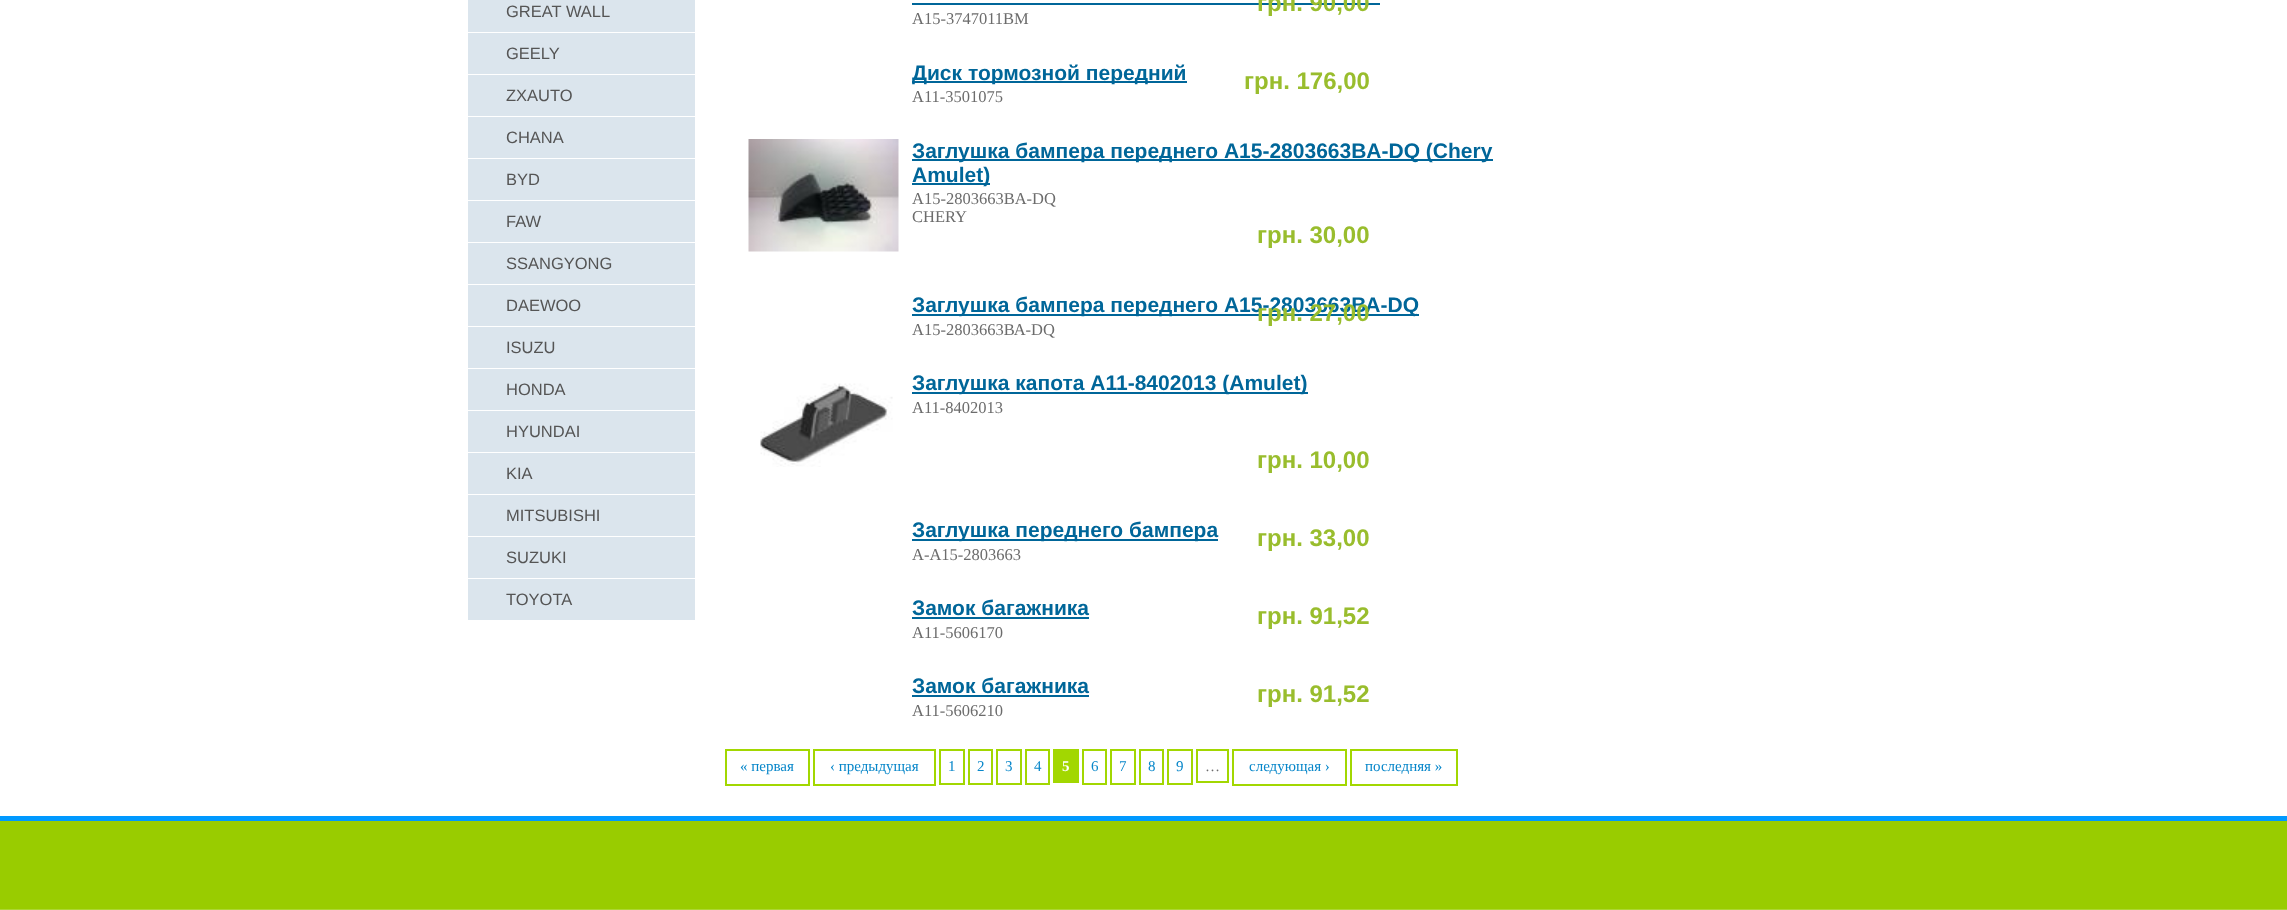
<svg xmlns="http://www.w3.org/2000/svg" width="2287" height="910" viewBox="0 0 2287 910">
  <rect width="100%" height="100%" fill="#ffffff"/>
  <rect x="468" y="0" width="227" height="32" fill="#dbe5ed"/>
  <text x="506" y="17" font-family="Liberation Sans" font-size="16.5" fill="#555555">GREAT WALL</text>
  <rect x="468" y="33" width="227" height="41" fill="#dbe5ed"/>
  <text x="506" y="59" font-family="Liberation Sans" font-size="16.5" fill="#555555">GEELY</text>
  <rect x="468" y="75" width="227" height="41" fill="#dbe5ed"/>
  <text x="506" y="101" font-family="Liberation Sans" font-size="16.5" fill="#555555">ZXAUTO</text>
  <rect x="468" y="117" width="227" height="41" fill="#dbe5ed"/>
  <text x="506" y="143" font-family="Liberation Sans" font-size="16.5" fill="#555555">CHANA</text>
  <rect x="468" y="159" width="227" height="41" fill="#dbe5ed"/>
  <text x="506" y="185" font-family="Liberation Sans" font-size="16.5" fill="#555555">BYD</text>
  <rect x="468" y="201" width="227" height="41" fill="#dbe5ed"/>
  <text x="506" y="227" font-family="Liberation Sans" font-size="16.5" fill="#555555">FAW</text>
  <rect x="468" y="243" width="227" height="41" fill="#dbe5ed"/>
  <text x="506" y="269" font-family="Liberation Sans" font-size="16.5" fill="#555555">SSANGYONG</text>
  <rect x="468" y="285" width="227" height="41" fill="#dbe5ed"/>
  <text x="506" y="311" font-family="Liberation Sans" font-size="16.5" fill="#555555">DAEWOO</text>
  <rect x="468" y="327" width="227" height="41" fill="#dbe5ed"/>
  <text x="506" y="353" font-family="Liberation Sans" font-size="16.5" fill="#555555">ISUZU</text>
  <rect x="468" y="369" width="227" height="41" fill="#dbe5ed"/>
  <text x="506" y="395" font-family="Liberation Sans" font-size="16.5" fill="#555555">HONDA</text>
  <rect x="468" y="411" width="227" height="41" fill="#dbe5ed"/>
  <text x="506" y="437" font-family="Liberation Sans" font-size="16.5" fill="#555555">HYUNDAI</text>
  <rect x="468" y="453" width="227" height="41" fill="#dbe5ed"/>
  <text x="506" y="479" font-family="Liberation Sans" font-size="16.5" fill="#555555">KIA</text>
  <rect x="468" y="495" width="227" height="41" fill="#dbe5ed"/>
  <text x="506" y="521" font-family="Liberation Sans" font-size="16.5" fill="#555555">MITSUBISHI</text>
  <rect x="468" y="537" width="227" height="41" fill="#dbe5ed"/>
  <text x="506" y="563" font-family="Liberation Sans" font-size="16.5" fill="#555555">SUZUKI</text>
  <rect x="468" y="579" width="227" height="41" fill="#dbe5ed"/>
  <text x="506" y="605" font-family="Liberation Sans" font-size="16.5" fill="#555555">TOYOTA</text>
  <rect x="912" y="3" width="468" height="2" fill="#006699"/>
  <text x="1257" y="11" font-family="Liberation Sans" font-size="24" font-weight="bold" fill="#99bd2d">грн. 90,00</text>
  <text x="912" y="24" font-family="Liberation Serif" font-size="16.5" fill="#6c6c6c">А15-3747011ВМ</text>
  <rect x="912" y="81" width="275" height="2" fill="#006699"/>
  <text x="912" y="80" font-family="Liberation Sans" font-size="21" font-weight="bold" fill="#006699">Диск тормозной передний</text>
  <text x="1244" y="89" font-family="Liberation Sans" font-size="24" font-weight="bold" fill="#99bd2d">грн. 176,00</text>
  <text x="912" y="102" font-family="Liberation Serif" font-size="16.5" fill="#6c6c6c">A11-3501075</text>
  <image x="748" y="139" width="151" height="113" href="img1.png"/>
  <rect x="912" y="159" width="581" height="2" fill="#006699"/>
  <text x="912" y="158" font-family="Liberation Sans" font-size="21" font-weight="bold" fill="#006699">Заглушка бампера переднего A15-2803663BA-DQ (Chery</text>
  <rect x="912" y="183" width="78" height="2" fill="#006699"/>
  <text x="912" y="182" font-family="Liberation Sans" font-size="21" font-weight="bold" fill="#006699">Amulet)</text>
  <text x="912" y="204" font-family="Liberation Serif" font-size="16.5" fill="#6c6c6c">A15-2803663BA-DQ</text>
  <text x="912" y="222" font-family="Liberation Serif" font-size="16.5" fill="#6c6c6c">CHERY</text>
  <text x="1257" y="243" font-family="Liberation Sans" font-size="24" font-weight="bold" fill="#99bd2d">грн. 30,00</text>
  <rect x="912" y="314" width="507" height="2" fill="#006699"/>
  <text x="912" y="312" font-family="Liberation Sans" font-size="21" font-weight="bold" fill="#006699">Заглушка бампера переднего А15-2803663ВА-DQ</text>
  <text x="1257" y="321" font-family="Liberation Sans" font-size="24" font-weight="bold" fill="#99bd2d">грн. 27,00</text>
  <text x="912" y="335" font-family="Liberation Serif" font-size="16.5" fill="#6c6c6c">А15-2803663ВА-DQ</text>
  <image x="760" y="383" width="133" height="84" href="img2.png"/>
  <rect x="912" y="392" width="396" height="2" fill="#006699"/>
  <text x="912" y="390" font-family="Liberation Sans" font-size="21" font-weight="bold" fill="#006699">Заглушка капота A11-8402013 (Amulet)</text>
  <text x="912" y="413" font-family="Liberation Serif" font-size="16.5" fill="#6c6c6c">A11-8402013</text>
  <text x="1257" y="468" font-family="Liberation Sans" font-size="24" font-weight="bold" fill="#99bd2d">грн. 10,00</text>
  <rect x="912" y="539" width="306" height="2" fill="#006699"/>
  <text x="912" y="537" font-family="Liberation Sans" font-size="21" font-weight="bold" fill="#006699">Заглушка переднего бампера</text>
  <text x="1257" y="546" font-family="Liberation Sans" font-size="24" font-weight="bold" fill="#99bd2d">грн. 33,00</text>
  <text x="912" y="560" font-family="Liberation Serif" font-size="16.5" fill="#6c6c6c">A-A15-2803663</text>
  <text x="912" y="615" font-family="Liberation Sans" font-size="21" font-weight="bold" fill="#006699">Замок багажника</text>
  <rect x="912" y="617" width="177" height="2" fill="#006699"/>
  <text x="1257" y="624" font-family="Liberation Sans" font-size="24" font-weight="bold" fill="#99bd2d">грн. 91,52</text>
  <text x="912" y="638" font-family="Liberation Serif" font-size="16.5" fill="#6c6c6c">A11-5606170</text>
  <text x="912" y="693" font-family="Liberation Sans" font-size="21" font-weight="bold" fill="#006699">Замок багажника</text>
  <rect x="912" y="695" width="177" height="2" fill="#006699"/>
  <text x="1257" y="702" font-family="Liberation Sans" font-size="24" font-weight="bold" fill="#99bd2d">грн. 91,52</text>
  <text x="912" y="716" font-family="Liberation Serif" font-size="16.5" fill="#6c6c6c">A11-5606210</text>
  <rect x="726" y="750" width="83" height="35" fill="none" stroke="#a2d701" stroke-width="2"/>
  <text x="740" y="771" font-family="Liberation Serif" font-size="15" fill="#0887ca">« первая</text>
  <rect x="814" y="750" width="121" height="35" fill="none" stroke="#a2d701" stroke-width="2"/>
  <text x="830" y="771" font-family="Liberation Serif" font-size="15" fill="#0887ca">‹ предыдущая</text>
  <rect x="940" y="750" width="24" height="34" fill="none" stroke="#a2d701" stroke-width="2"/>
  <text x="948" y="771" font-family="Liberation Serif" font-size="15" fill="#0887ca">1</text>
  <rect x="969" y="750" width="23" height="34" fill="none" stroke="#a2d701" stroke-width="2"/>
  <text x="977" y="771" font-family="Liberation Serif" font-size="15" fill="#0887ca">2</text>
  <rect x="997" y="750" width="24" height="34" fill="none" stroke="#a2d701" stroke-width="2"/>
  <text x="1005" y="771" font-family="Liberation Serif" font-size="15" fill="#0887ca">3</text>
  <rect x="1026" y="750" width="23" height="34" fill="none" stroke="#a2d701" stroke-width="2"/>
  <text x="1034" y="771" font-family="Liberation Serif" font-size="15" fill="#0887ca">4</text>
  <rect x="1053" y="749" width="26" height="34" fill="#a2d701"/>
  <text x="1062" y="771" font-family="Liberation Serif" font-size="15" font-weight="bold" fill="#ffffff">5</text>
  <rect x="1083" y="750" width="23" height="34" fill="none" stroke="#a2d701" stroke-width="2"/>
  <text x="1091" y="771" font-family="Liberation Serif" font-size="15" fill="#0887ca">6</text>
  <rect x="1111" y="750" width="24" height="34" fill="none" stroke="#a2d701" stroke-width="2"/>
  <text x="1119" y="771" font-family="Liberation Serif" font-size="15" fill="#0887ca">7</text>
  <rect x="1140" y="750" width="23" height="34" fill="none" stroke="#a2d701" stroke-width="2"/>
  <text x="1148" y="771" font-family="Liberation Serif" font-size="15" fill="#0887ca">8</text>
  <rect x="1168" y="750" width="24" height="34" fill="none" stroke="#a2d701" stroke-width="2"/>
  <text x="1176" y="771" font-family="Liberation Serif" font-size="15" fill="#0887ca">9</text>
  <rect x="1197" y="750" width="31" height="32" fill="none" stroke="#a2d701" stroke-width="2"/>
  <text x="1205" y="771" font-family="Liberation Serif" font-size="15" fill="#6c6c6c">…</text>
  <rect x="1233" y="750" width="113" height="35" fill="none" stroke="#a2d701" stroke-width="2"/>
  <text x="1249" y="771" font-family="Liberation Serif" font-size="15" fill="#0887ca">следующая ›</text>
  <rect x="1351" y="750" width="106" height="35" fill="none" stroke="#a2d701" stroke-width="2"/>
  <text x="1365" y="771" font-family="Liberation Serif" font-size="15" fill="#0887ca">последняя »</text>
  <rect x="0" y="821" width="2287" height="88" fill="#99cc00"/>
  <rect x="0" y="816" width="2287" height="5" fill="#0099ff"/>
  <rect x="0" y="909" width="2287" height="1" fill="#add633"/>
</svg>
